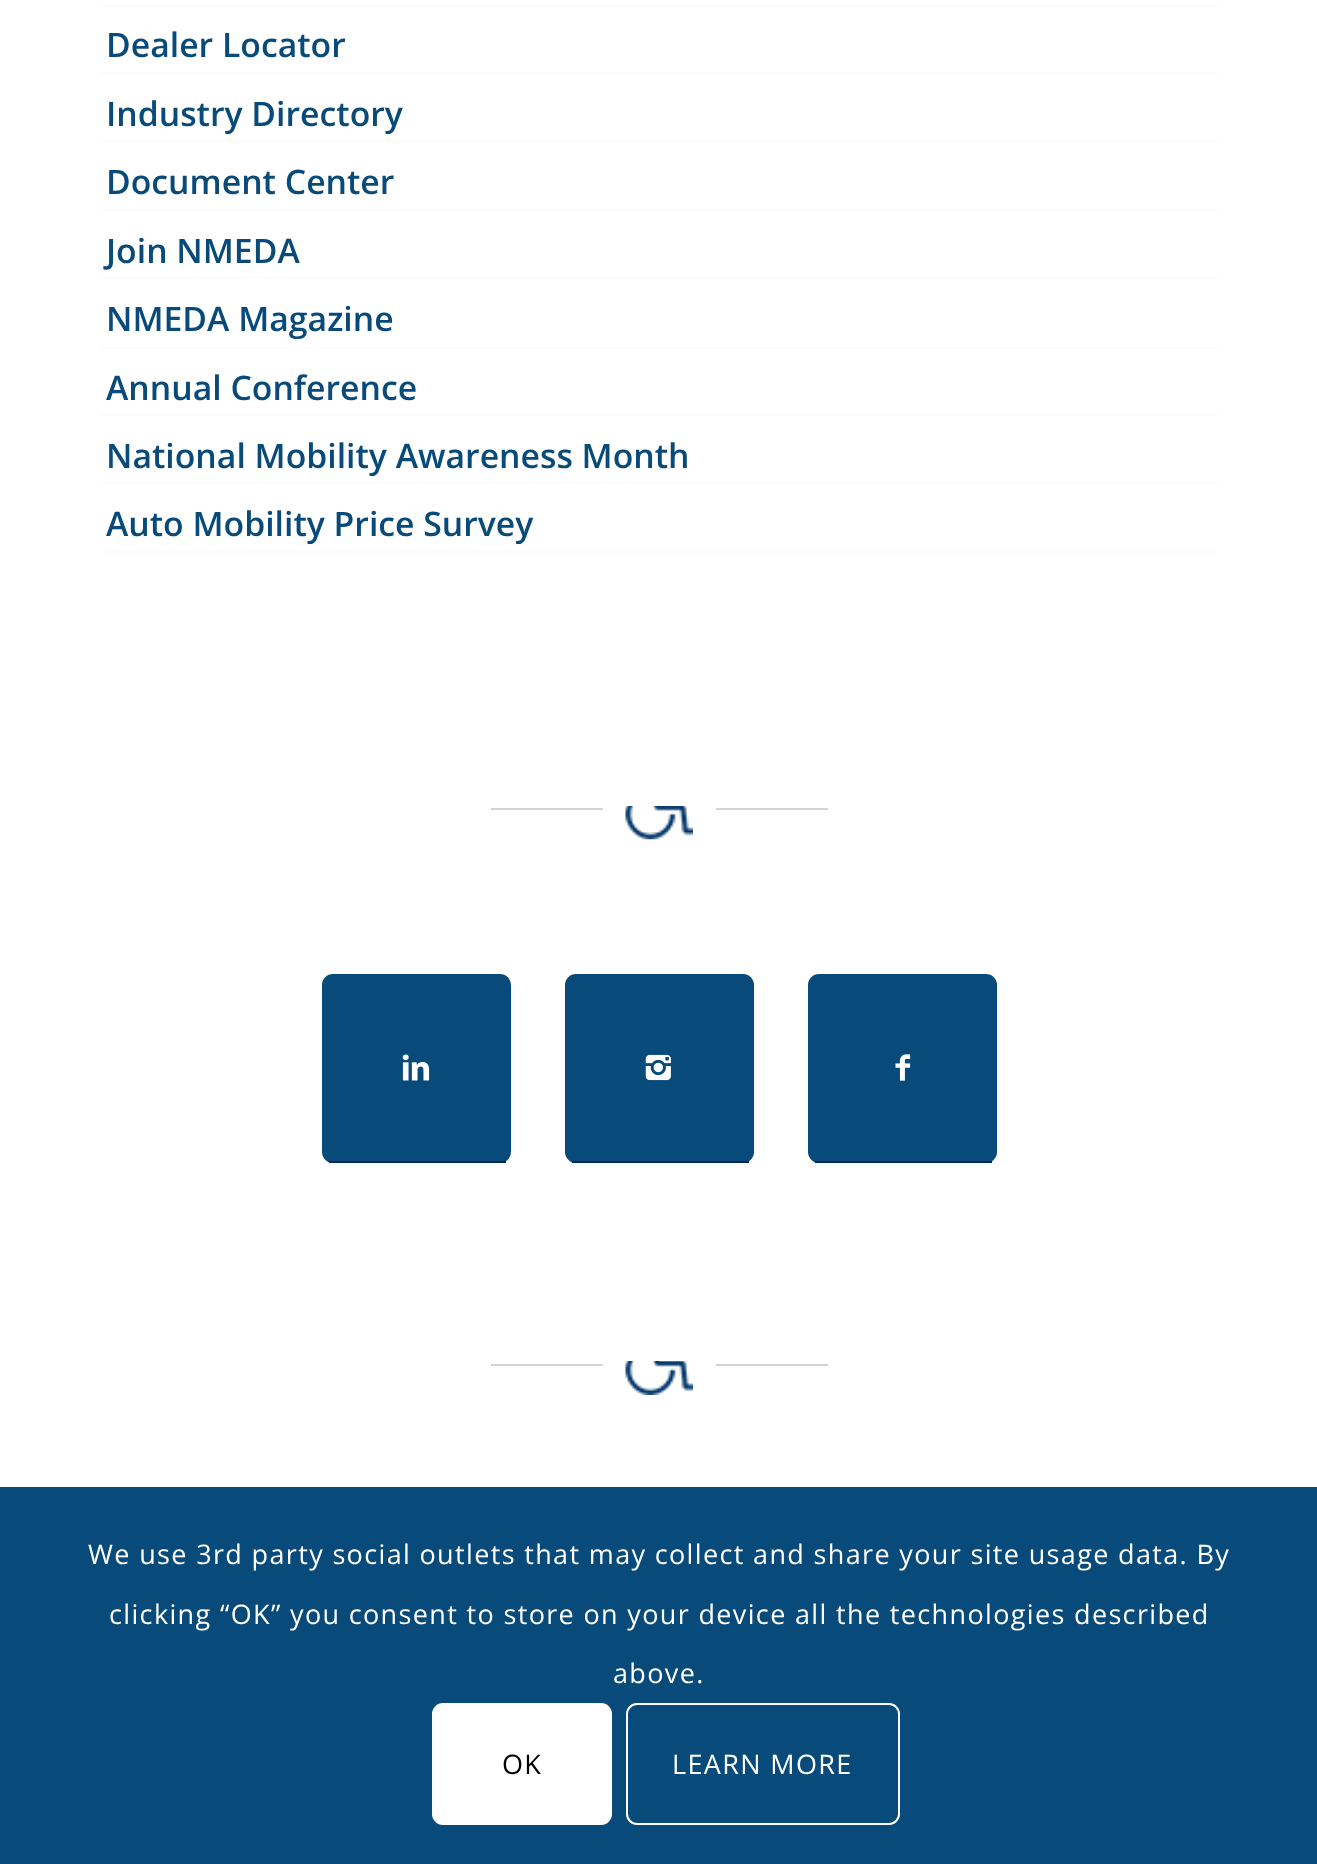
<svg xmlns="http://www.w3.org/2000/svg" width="1317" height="1864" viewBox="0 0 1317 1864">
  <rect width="100%" height="100%" fill="#ffffff"/>
  <rect x="99" y="5" width="1121" height="2" fill="#fcfcfc"/>
  <rect x="99" y="72" width="1121" height="2" fill="#fcfcfc"/>
  <text x="106" y="57" font-family="Open Sans" font-size="33.75" font-weight="600" fill="#084a79">Dealer Locator</text>
  <rect x="99" y="140" width="1121" height="2" fill="#fcfcfc"/>
  <text x="106" y="126" font-family="Open Sans" font-size="33.75" font-weight="600" fill="#084a79">Industry Directory</text>
  <rect x="99" y="209" width="1121" height="2" fill="#fcfcfc"/>
  <text x="106" y="194" font-family="Open Sans" font-size="33.75" font-weight="600" fill="#084a79">Document Center</text>
  <rect x="99" y="277" width="1121" height="2" fill="#fcfcfc"/>
  <text x="106" y="263" font-family="Open Sans" font-size="33.75" font-weight="600" fill="#084a79">Join NMEDA</text>
  <rect x="99" y="347" width="1121" height="2" fill="#fcfcfc"/>
  <text x="106" y="331" font-family="Open Sans" font-size="33.75" font-weight="600" fill="#084a79">NMEDA Magazine</text>
  <rect x="99" y="414" width="1121" height="2" fill="#fcfcfc"/>
  <text x="106" y="400" font-family="Open Sans" font-size="33.75" font-weight="600" fill="#084a79">Annual Conference</text>
  <rect x="99" y="482" width="1121" height="2" fill="#fcfcfc"/>
  <text x="106" y="468" font-family="Open Sans" font-size="33.75" font-weight="600" fill="#084a79">National Mobility Awareness Month</text>
  <rect x="99" y="551" width="1121" height="2" fill="#fcfcfc"/>
  <text x="106" y="536" font-family="Open Sans" font-size="33.75" font-weight="600" fill="#084a79">Auto Mobility Price Survey</text>
  <rect x="491" y="808" width="112" height="2" fill="#d3d3d3"/>
  <image x="625" y="806" width="68" height="34" href="img1.png"/>
  <rect x="716" y="808" width="112" height="2" fill="#d3d3d3"/>
  <rect x="322" y="974" width="189" height="189" rx="11" fill="#084a79"/>
  <rect x="329" y="1161" width="177" height="2" fill="#062857"/>
  <image x="402" y="1054" width="28" height="27" href="img2.png"/>
  <rect x="565" y="974" width="189" height="189" rx="11" fill="#084a79"/>
  <rect x="572" y="1161" width="177" height="2" fill="#062857"/>
  <image x="645" y="1054" width="26" height="27" href="img3.png"/>
  <rect x="808" y="974" width="189" height="189" rx="11" fill="#084a79"/>
  <rect x="815" y="1161" width="177" height="2" fill="#062857"/>
  <image x="895" y="1054" width="16" height="27" href="img4.png"/>
  <rect x="491" y="1364" width="112" height="2" fill="#d3d3d3"/>
  <image x="625" y="1361" width="68" height="34" href="img5.png"/>
  <rect x="716" y="1364" width="112" height="2" fill="#d3d3d3"/>
  <rect x="0" y="1487" width="1317" height="377" fill="#084a79"/>
  <text x="88" y="1564" font-family="Open Sans" font-size="27" letter-spacing="1.35" fill="#ffffff">We use 3rd party social outlets that may collect and share your site usage data. By</text>
  <text x="109" y="1624" font-family="Open Sans" font-size="27" letter-spacing="1.35" fill="#ffffff">clicking “OK” you consent to store on your device all the technologies described</text>
  <text x="613" y="1683" font-family="Open Sans" font-size="27" letter-spacing="1.35" fill="#ffffff">above.</text>
  <rect x="432" y="1703" width="180" height="122" rx="11" fill="#ffffff"/>
  <text x="502" y="1774" font-family="Open Sans" font-size="27" letter-spacing="1.35" fill="#000000">OK</text>
  <rect x="627" y="1704" width="272" height="120" rx="10" fill="none" stroke="#ffffff" stroke-width="2"/>
  <text x="672" y="1774" font-family="Open Sans" font-size="27" letter-spacing="1.35" fill="#ffffff">LEARN MORE</text>
</svg>
